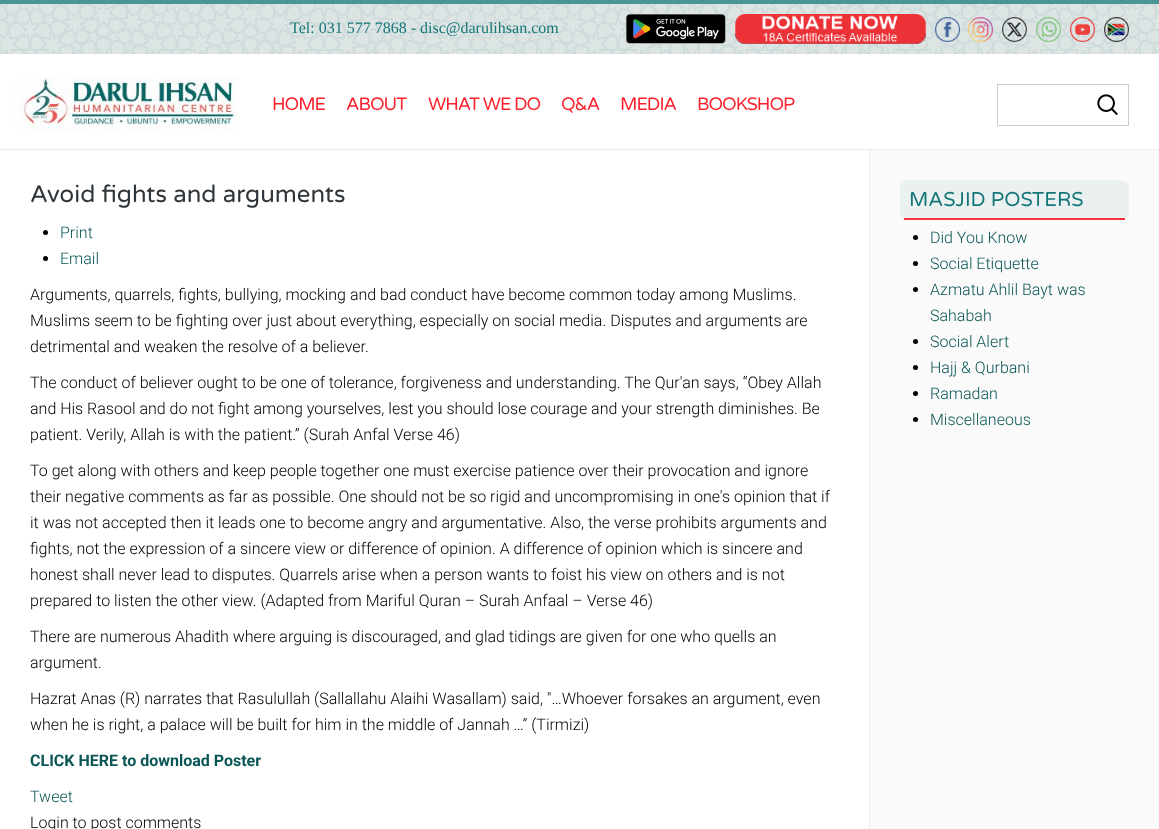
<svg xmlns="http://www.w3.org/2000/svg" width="1159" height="829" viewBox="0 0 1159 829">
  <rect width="100%" height="100%" fill="#ffffff"/>
  <image x="0" y="4" width="1159" height="50" href="img1.png"/>
  <rect x="0" y="0" width="1159" height="4" fill="#4b9596"/>
  <text x="290" y="33" font-family="Liberation Serif" font-size="16" fill="#157678">Tel: 031 577 7868 - disc@darulihsan.com</text>
  <image x="626" y="14" width="100" height="30" href="img2.png"/>
  <image x="735" y="14" width="191" height="30" href="img3.png"/>
  <image x="935" y="17" width="25" height="25" href="img4.png"/>
  <image x="968" y="17" width="25" height="25" href="img5.png"/>
  <image x="1002" y="17" width="25" height="25" href="img6.png"/>
  <image x="1036" y="17" width="25" height="25" href="img7.png"/>
  <image x="1070" y="17" width="25" height="25" href="img8.png"/>
  <image x="1104" y="17" width="25" height="25" href="img9.png"/>
  <image x="14" y="77" width="224" height="54" href="img10.png"/>
  <text x="272" y="110" font-family="Varela Round" font-size="18" letter-spacing="-1" fill="#fd212c">HOME</text>
  <text x="346" y="110" font-family="Varela Round" font-size="18" letter-spacing="-1" fill="#fd212c">ABOUT</text>
  <text x="428" y="110" font-family="Varela Round" font-size="18" letter-spacing="-1" fill="#fd212c">WHAT WE DO</text>
  <text x="561" y="110" font-family="Varela Round" font-size="18" letter-spacing="-1" fill="#fd212c">Q&amp;A</text>
  <text x="620" y="110" font-family="Varela Round" font-size="18" letter-spacing="-1" fill="#fd212c">MEDIA</text>
  <text x="697" y="110" font-family="Varela Round" font-size="18" letter-spacing="-1" fill="#fd212c">BOOKSHOP</text>
  <rect x="997.5" y="84.5" width="131" height="41" fill="none" stroke="#cccccc"/>
  <image x="1097" y="94" width="21" height="21" href="img11.png"/>
  <rect x="0" y="149" width="1159" height="1" fill="#ebebec"/>
  <text x="30" y="202" font-family="Varela Round" font-size="24" fill="#2f363b">Avoid fights and arguments</text>
  <circle cx="45.5" cy="232.5" r="2.5" fill="#000000"/>
  <text x="60" y="238" font-family="Roboto" font-size="16" font-weight="300" fill="#0a5556">Print</text>
  <circle cx="45.5" cy="258.5" r="2.5" fill="#000000"/>
  <text x="60" y="264" font-family="Roboto" font-size="16" font-weight="300" fill="#0a5556">Email</text>
  <text x="30" y="300" font-family="Roboto" font-size="16" font-weight="300" fill="#000000">Arguments, quarrels, fights, bullying, mocking and bad conduct have become common today among Muslims.</text>
  <text x="30" y="326" font-family="Roboto" font-size="16" font-weight="300" fill="#000000">Muslims seem to be fighting over just about everything, especially on social media. Disputes and arguments are</text>
  <text x="30" y="352" font-family="Roboto" font-size="16" font-weight="300" fill="#000000">detrimental and weaken the resolve of a believer.</text>
  <text x="30" y="388" font-family="Roboto" font-size="16" font-weight="300" fill="#000000">The conduct of believer ought to be one of tolerance, forgiveness and understanding. The Qur'an says, “Obey Allah</text>
  <text x="30" y="414" font-family="Roboto" font-size="16" font-weight="300" fill="#000000">and His Rasool and do not fight among yourselves, lest you should lose courage and your strength diminishes. Be</text>
  <text x="30" y="440" font-family="Roboto" font-size="16" font-weight="300" fill="#000000">patient. Verily, Allah is with the patient.” (Surah Anfal Verse 46)</text>
  <text x="30" y="476" font-family="Roboto" font-size="16" font-weight="300" fill="#000000">To get along with others and keep people together one must exercise patience over their provocation and ignore</text>
  <text x="30" y="502" font-family="Roboto" font-size="16" font-weight="300" fill="#000000">their negative comments as far as possible. One should not be so rigid and uncompromising in one's opinion that if</text>
  <text x="30" y="528" font-family="Roboto" font-size="16" font-weight="300" fill="#000000">it was not accepted then it leads one to become angry and argumentative. Also, the verse prohibits arguments and</text>
  <text x="30" y="554" font-family="Roboto" font-size="16" font-weight="300" fill="#000000">fights, not the expression of a sincere view or difference of opinion. A difference of opinion which is sincere and</text>
  <text x="30" y="580" font-family="Roboto" font-size="16" font-weight="300" fill="#000000">honest shall never lead to disputes. Quarrels arise when a person wants to foist his view on others and is not</text>
  <text x="30" y="606" font-family="Roboto" font-size="16" font-weight="300" fill="#000000">prepared to listen the other view. (Adapted from Mariful Quran – Surah Anfaal – Verse 46)</text>
  <text x="30" y="642" font-family="Roboto" font-size="16" font-weight="300" fill="#000000">There are numerous Ahadith where arguing is discouraged, and glad tidings are given for one who quells an</text>
  <text x="30" y="668" font-family="Roboto" font-size="16" font-weight="300" fill="#000000">argument.</text>
  <text x="30" y="704" font-family="Roboto" font-size="16" font-weight="300" fill="#000000">Hazrat Anas (R) narrates that Rasulullah (Sallallahu Alaihi Wasallam) said, "…Whoever forsakes an argument, even</text>
  <text x="30" y="730" font-family="Roboto" font-size="16" font-weight="300" fill="#000000">when he is right, a palace will be built for him in the middle of Jannah …” (Tirmizi)</text>
  <text x="30" y="766" font-family="Roboto" font-size="16" font-weight="bold" fill="#0a5556">CLICK HERE to download Poster</text>
  <text x="30" y="802" font-family="Roboto" font-size="16" font-weight="300" fill="#0a5556">Tweet</text>
  <text x="30" y="828" font-family="Roboto" font-size="16" font-weight="300" fill="#000000">Login to post comments</text>
  <rect x="870" y="150" width="289" height="679" fill="#fafafa"/>
  <rect x="869" y="150" width="1" height="679" fill="#ebebec"/>
  <rect x="900" y="180" width="229" height="40" rx="8" fill="#ebf1f1"/>
  <rect x="904" y="218" width="221" height="2" fill="#fd2f38"/>
  <text x="909" y="206" font-family="Varela Round" font-size="20" fill="#157678">MASJID POSTERS</text>
  <circle cx="915.5" cy="237.5" r="2.5" fill="#000000"/>
  <text x="930" y="243" font-family="Roboto" font-size="16" font-weight="300" fill="#0a5556">Did You Know</text>
  <circle cx="915.5" cy="263.5" r="2.5" fill="#000000"/>
  <text x="930" y="269" font-family="Roboto" font-size="16" font-weight="300" fill="#0a5556">Social Etiquette</text>
  <circle cx="915.5" cy="289.5" r="2.5" fill="#000000"/>
  <text x="930" y="295" font-family="Roboto" font-size="16" font-weight="300" fill="#0a5556">Azmatu Ahlil Bayt was</text>
  <text x="930" y="321" font-family="Roboto" font-size="16" font-weight="300" fill="#0a5556">Sahabah</text>
  <circle cx="915.5" cy="341.5" r="2.5" fill="#000000"/>
  <text x="930" y="347" font-family="Roboto" font-size="16" font-weight="300" fill="#0a5556">Social Alert</text>
  <circle cx="915.5" cy="367.5" r="2.5" fill="#000000"/>
  <text x="930" y="373" font-family="Roboto" font-size="16" font-weight="300" fill="#0a5556">Hajj &amp; Qurbani</text>
  <circle cx="915.5" cy="393.5" r="2.5" fill="#000000"/>
  <text x="930" y="399" font-family="Roboto" font-size="16" font-weight="300" fill="#0a5556">Ramadan</text>
  <circle cx="915.5" cy="419.5" r="2.5" fill="#000000"/>
  <text x="930" y="425" font-family="Roboto" font-size="16" font-weight="300" fill="#0a5556">Miscellaneous</text>
</svg>
